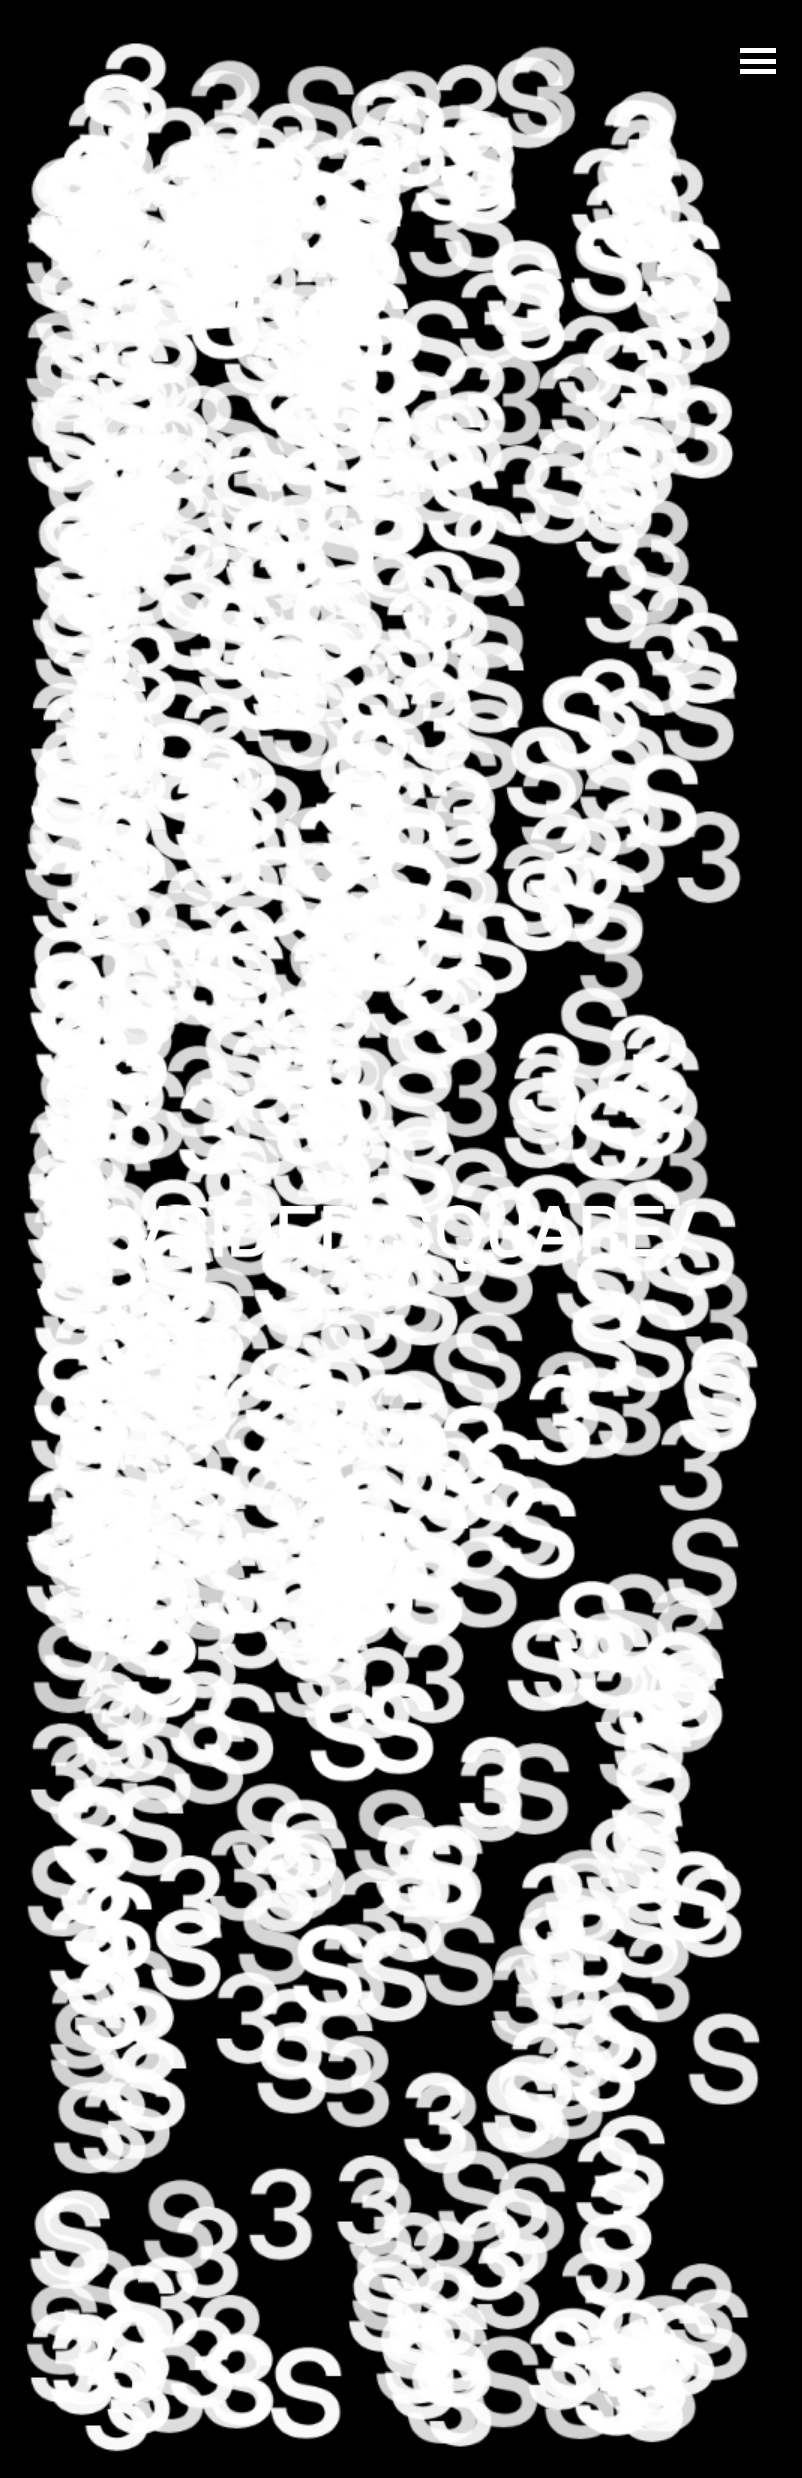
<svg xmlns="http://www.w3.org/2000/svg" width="802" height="2478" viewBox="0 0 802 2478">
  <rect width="100%" height="100%" fill="#000000"/>
  <image x="23" y="43" width="738" height="2409" href="img1.png"/>
  <image x="108" y="1205" width="589" height="67" href="img2.png"/>
  <rect x="740" y="48" width="36" height="5" fill="#ffffff"/>
  <rect x="740" y="59" width="36" height="5" fill="#ffffff"/>
  <rect x="740" y="69" width="36" height="5" fill="#ffffff"/>
</svg>
